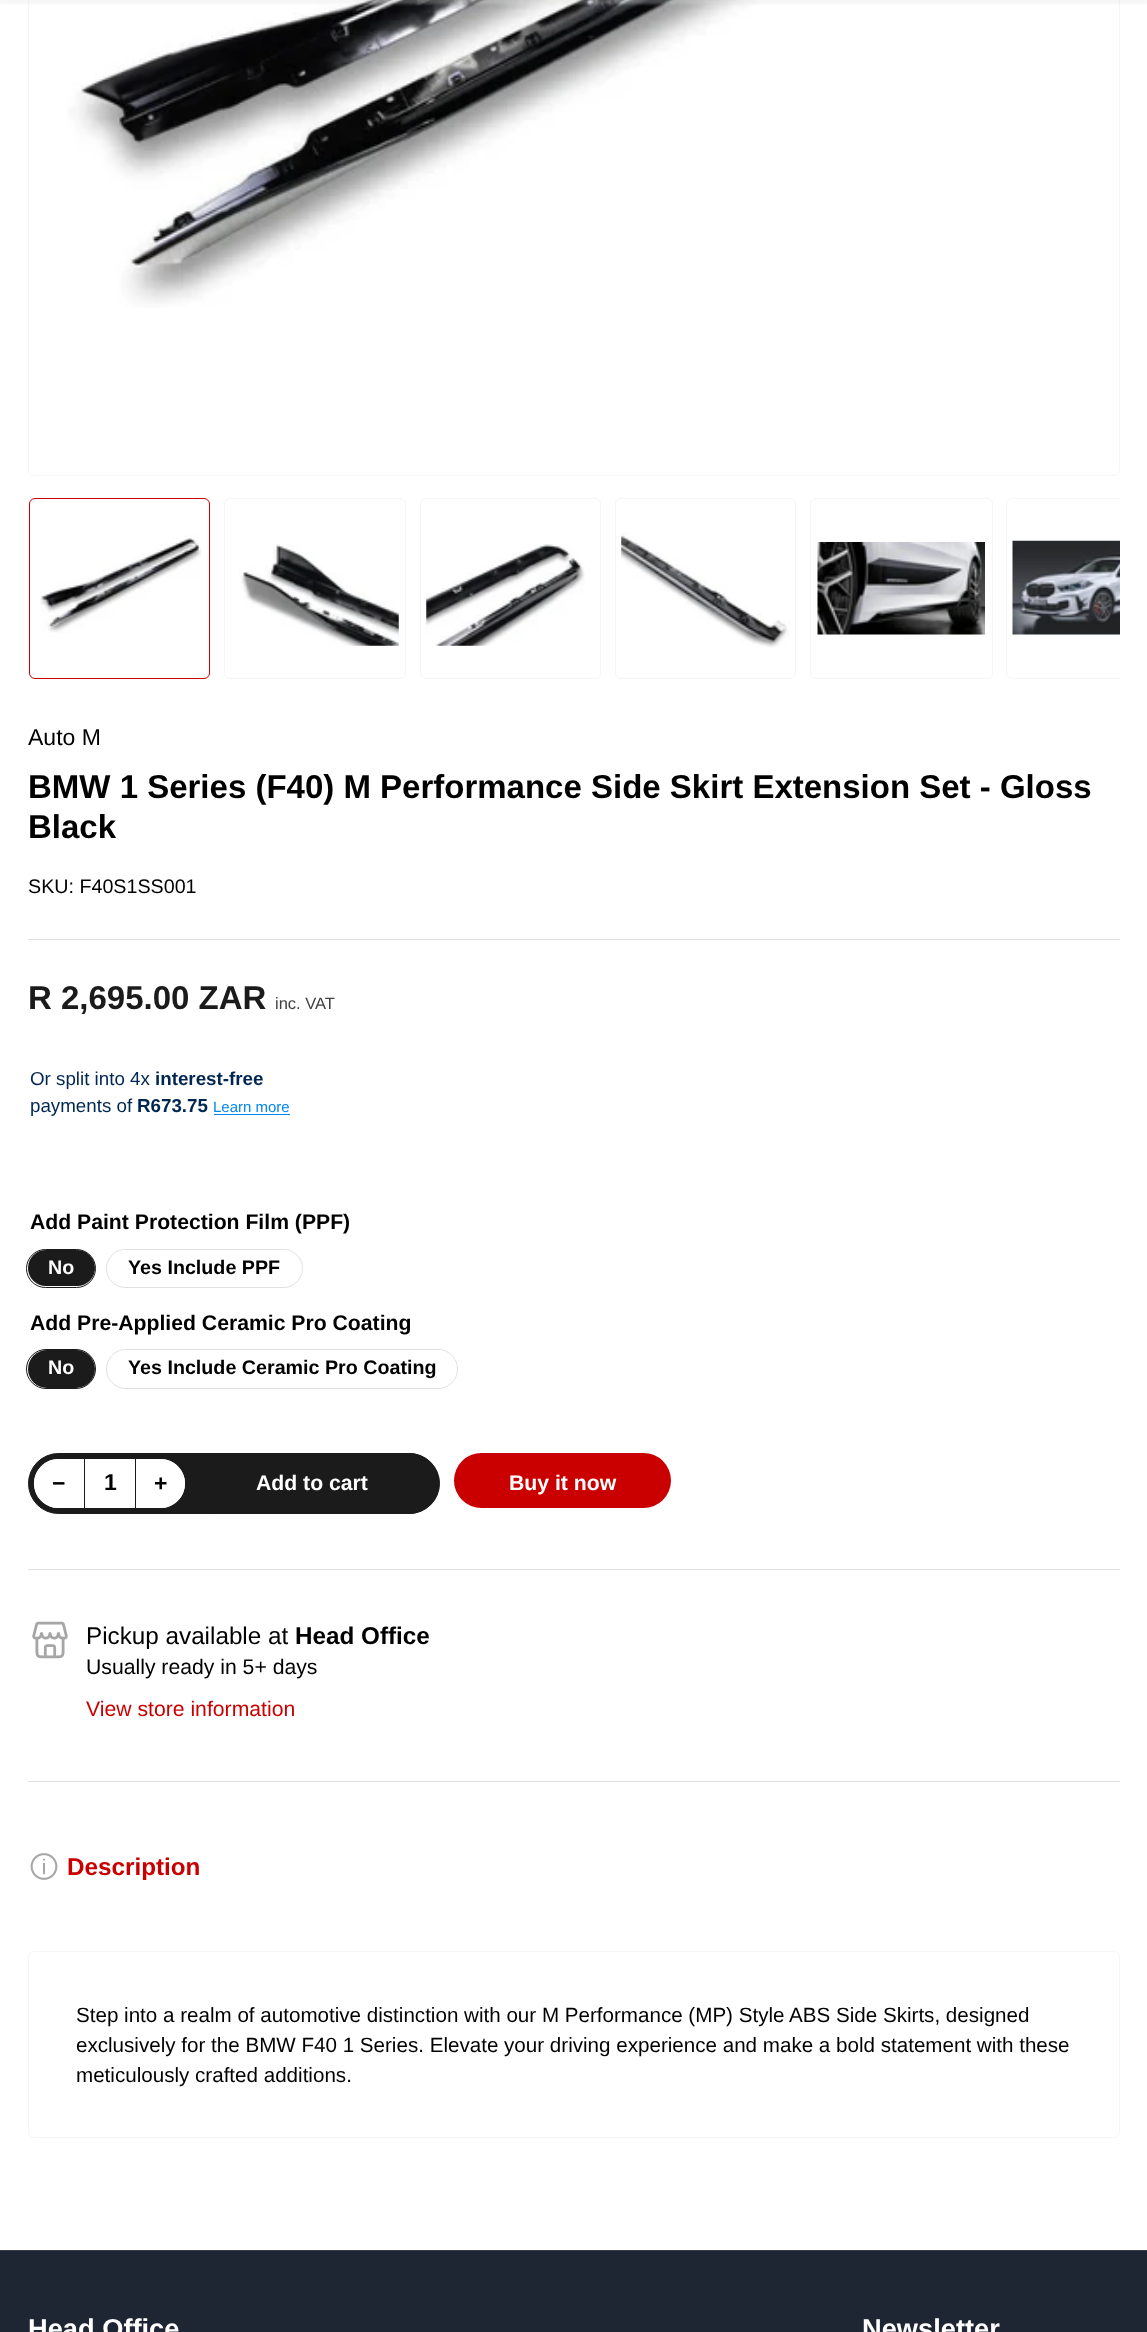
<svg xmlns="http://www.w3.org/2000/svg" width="1147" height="2332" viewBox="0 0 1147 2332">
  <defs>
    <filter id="blur1" x="-50%" y="-200%" width="200%" height="500%"><feGaussianBlur stdDeviation="1.5"/></filter>
    <clipPath id="clip1"><rect x="28" y="496" width="1092" height="184"/></clipPath>
  </defs>
  <rect width="100%" height="100%" fill="#ffffff"/>
  <rect x="28.5" y="-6.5" width="1091" height="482" rx="5.5" fill="none" stroke="#f6f6f6"/>
  <image x="67" y="0" width="691" height="308" href="img1.png"/>
  <rect x="-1" y="-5" width="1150" height="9" fill="#e1e1e1" fill-opacity="0.3" filter="url(#blur1)"/>
  <rect x="29.5" y="498.5" width="180" height="180" rx="5.5" fill="none" stroke="#ca0000"/>
  <image x="40" y="535" width="162" height="98" href="img2.png"/>
  <rect x="224.5" y="498.5" width="181" height="180" rx="5.5" fill="none" stroke="#f6f6f6"/>
  <image x="239" y="544" width="160" height="102" href="img3.png"/>
  <rect x="420.5" y="498.5" width="180" height="180" rx="5.5" fill="none" stroke="#f6f6f6"/>
  <image x="426" y="544" width="159" height="102" href="img4.png"/>
  <rect x="615.5" y="498.5" width="180" height="180" rx="5.5" fill="none" stroke="#f6f6f6"/>
  <image x="621" y="532" width="169" height="116" href="img5.png"/>
  <rect x="810.5" y="498.5" width="182" height="180" rx="5.5" fill="none" stroke="#f6f6f6"/>
  <image x="817" y="542" width="168" height="93" href="img6.png"/>
  <g clip-path="url(#clip1)">
    <rect x="1006.5" y="498.5" width="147" height="180" rx="5.5" fill="none" stroke="#f6f6f6"/>
  </g>
  <image x="1012" y="540" width="108" height="95" href="img7.png"/>
  <rect x="28" y="939" width="1092" height="1" fill="#e1e1e1"/>
  <text x="28" y="745" font-family="Liberation Sans" font-size="23" fill="#000000">Auto M</text>
  <text x="28" y="798" font-family="Liberation Sans" font-size="33" font-weight="bold" fill="#000000">BMW 1 Series (F40) M Performance Side Skirt Extension Set - Gloss</text>
  <text x="28" y="838" font-family="Liberation Sans" font-size="33" font-weight="bold" fill="#000000">Black</text>
  <text x="28" y="893" font-family="Liberation Sans" font-size="19.7" fill="#000000">SKU: F40S1SS001</text>
  <text x="28" y="1009" font-family="Liberation Sans" font-size="33" font-weight="bold" fill="#1b1b1b">R 2,695.00 ZAR</text>
  <text x="275" y="1009" font-family="Liberation Sans" font-size="16.5" fill="#404040">inc. VAT</text>
  <text x="30" y="1085" font-family="Liberation Sans" font-size="18.75" fill="#002751">Or split into 4x</text>
  <text x="155" y="1085" font-family="Liberation Sans" font-size="18.75" font-weight="bold" fill="#002751">interest-free</text>
  <text x="30" y="1112" font-family="Liberation Sans" font-size="18.75" fill="#002751">payments of</text>
  <text x="137" y="1112" font-family="Liberation Sans" font-size="18.75" font-weight="bold" fill="#002751">R673.75</text>
  <text x="213" y="1112" font-family="Liberation Sans" font-size="15" fill="#0086ef">Learn more</text>
  <rect x="214" y="1114" width="76" height="1" fill="#0086ef"/>
  <text x="30" y="1229" font-family="Liberation Sans" font-size="21.2" font-weight="bold" fill="#000000">Add Paint Protection Film (PPF)</text>
  <rect x="26.5" y="1249.5" width="69" height="38" rx="19" fill="none" stroke="#1b1b1b"/>
  <rect x="28" y="1250" width="67" height="36" rx="18" fill="#1b1b1b"/>
  <text x="48" y="1274" font-family="Liberation Sans" font-size="19.7" font-weight="bold" fill="#ffffff">No</text>
  <rect x="106.5" y="1249.5" width="196" height="38" rx="19" fill="none" stroke="#e1e1e1"/>
  <rect x="108" y="1250" width="193" height="36" rx="18" fill="#ffffff"/>
  <text x="128" y="1274" font-family="Liberation Sans" font-size="19.7" font-weight="bold" fill="#000000">Yes Include PPF</text>
  <text x="30" y="1330" font-family="Liberation Sans" font-size="21.2" font-weight="bold" fill="#000000">Add Pre-Applied Ceramic Pro Coating</text>
  <rect x="26.5" y="1349.5" width="69" height="39" rx="19.5" fill="none" stroke="#1b1b1b"/>
  <rect x="28" y="1350" width="67" height="38" rx="19" fill="#1b1b1b"/>
  <text x="48" y="1374" font-family="Liberation Sans" font-size="19.7" font-weight="bold" fill="#ffffff">No</text>
  <rect x="106.5" y="1349.5" width="351" height="39" rx="19.5" fill="none" stroke="#e1e1e1"/>
  <rect x="108" y="1350" width="348" height="38" rx="19" fill="#ffffff"/>
  <text x="128" y="1374" font-family="Liberation Sans" font-size="19.7" font-weight="bold" fill="#000000">Yes Include Ceramic Pro Coating</text>
  <rect x="28.5" y="1453.5" width="411" height="60" rx="30" fill="#1b1b1b" stroke="#1b1b1b"/>
  <rect x="34" y="1459" width="151" height="49" rx="24.5" fill="#ffffff"/>
  <path d="M58.5 1459H84V1508H58.5C45 1508 34 1497 34 1483.5C34 1470 45 1459 58.5 1459Z" fill="#ffffff"/>
  <text x="52" y="1491" font-family="Liberation Sans" font-size="23" font-weight="bold" fill="#000000">−</text>
  <rect x="135" y="1459" width="1" height="49" fill="#1b1b1b"/>
  <rect x="84" y="1459" width="1" height="49" fill="#1b1b1b"/>
  <text x="104" y="1490" font-family="Liberation Sans" font-size="23" font-weight="bold" fill="#000000">1</text>
  <path d="M136 1459H160.5C174 1459 185 1470 185 1483.5C185 1497 174 1508 160.5 1508H136Z" fill="#ffffff"/>
  <text x="154" y="1491" font-family="Liberation Sans" font-size="23" font-weight="bold" fill="#000000">+</text>
  <rect x="185.5" y="1453.5" width="253" height="60" rx="30" fill="#1b1b1b" stroke="#1b1b1b"/>
  <text x="256" y="1490" font-family="Liberation Sans" font-size="21.2" font-weight="bold" fill="#ffffff">Add to cart</text>
  <rect x="454" y="1453" width="217" height="55" rx="27.5" fill="#ca0000"/>
  <text x="509" y="1490" font-family="Liberation Sans" font-size="21.2" font-weight="bold" fill="#ffffff">Buy it now</text>
  <rect x="28" y="1569" width="1092" height="1" fill="#e1e1e1"/>
  <image x="32" y="1621" width="36" height="38" href="img8.png"/>
  <text x="86" y="1644" font-family="Liberation Sans" font-size="24.25" fill="#000000">Pickup available at</text>
  <text x="295" y="1644" font-family="Liberation Sans" font-size="24.25" font-weight="bold" fill="#000000">Head Office</text>
  <text x="86" y="1674" font-family="Liberation Sans" font-size="21.2" fill="#000000">Usually ready in 5+ days</text>
  <text x="86" y="1716" font-family="Liberation Sans" font-size="21.2" fill="#ca0000">View store information</text>
  <rect x="28" y="1781" width="1092" height="1" fill="#e1e1e1"/>
  <image x="30" y="1853" width="28" height="27" href="img9.png"/>
  <text x="67" y="1875" font-family="Liberation Sans" font-size="24.25" font-weight="bold" fill="#ca0000">Description</text>
  <rect x="28.5" y="1951.5" width="1091" height="186" rx="5.5" fill="none" stroke="#f6f6f6"/>
  <text x="76" y="2022" font-family="Liberation Sans" font-size="20.6" fill="#000000">Step into a realm of automotive distinction with our M Performance (MP) Style ABS Side Skirts, designed</text>
  <text x="76" y="2052" font-family="Liberation Sans" font-size="20.6" fill="#000000">exclusively for the BMW F40 1 Series. Elevate your driving experience and make a bold statement with these</text>
  <text x="76" y="2082" font-family="Liberation Sans" font-size="20.6" fill="#000000">meticulously crafted additions.</text>
  <rect x="0" y="2251" width="1147" height="81" fill="#1e2633"/>
  <rect x="0" y="2250" width="1147" height="1" fill="#353c47"/>
  <text x="28" y="2338" font-family="Liberation Sans" font-size="27.25" font-weight="bold" fill="#ffffff">Head Office</text>
  <text x="862" y="2338" font-family="Liberation Sans" font-size="27.25" font-weight="bold" fill="#ffffff">Newsletter</text>
</svg>
